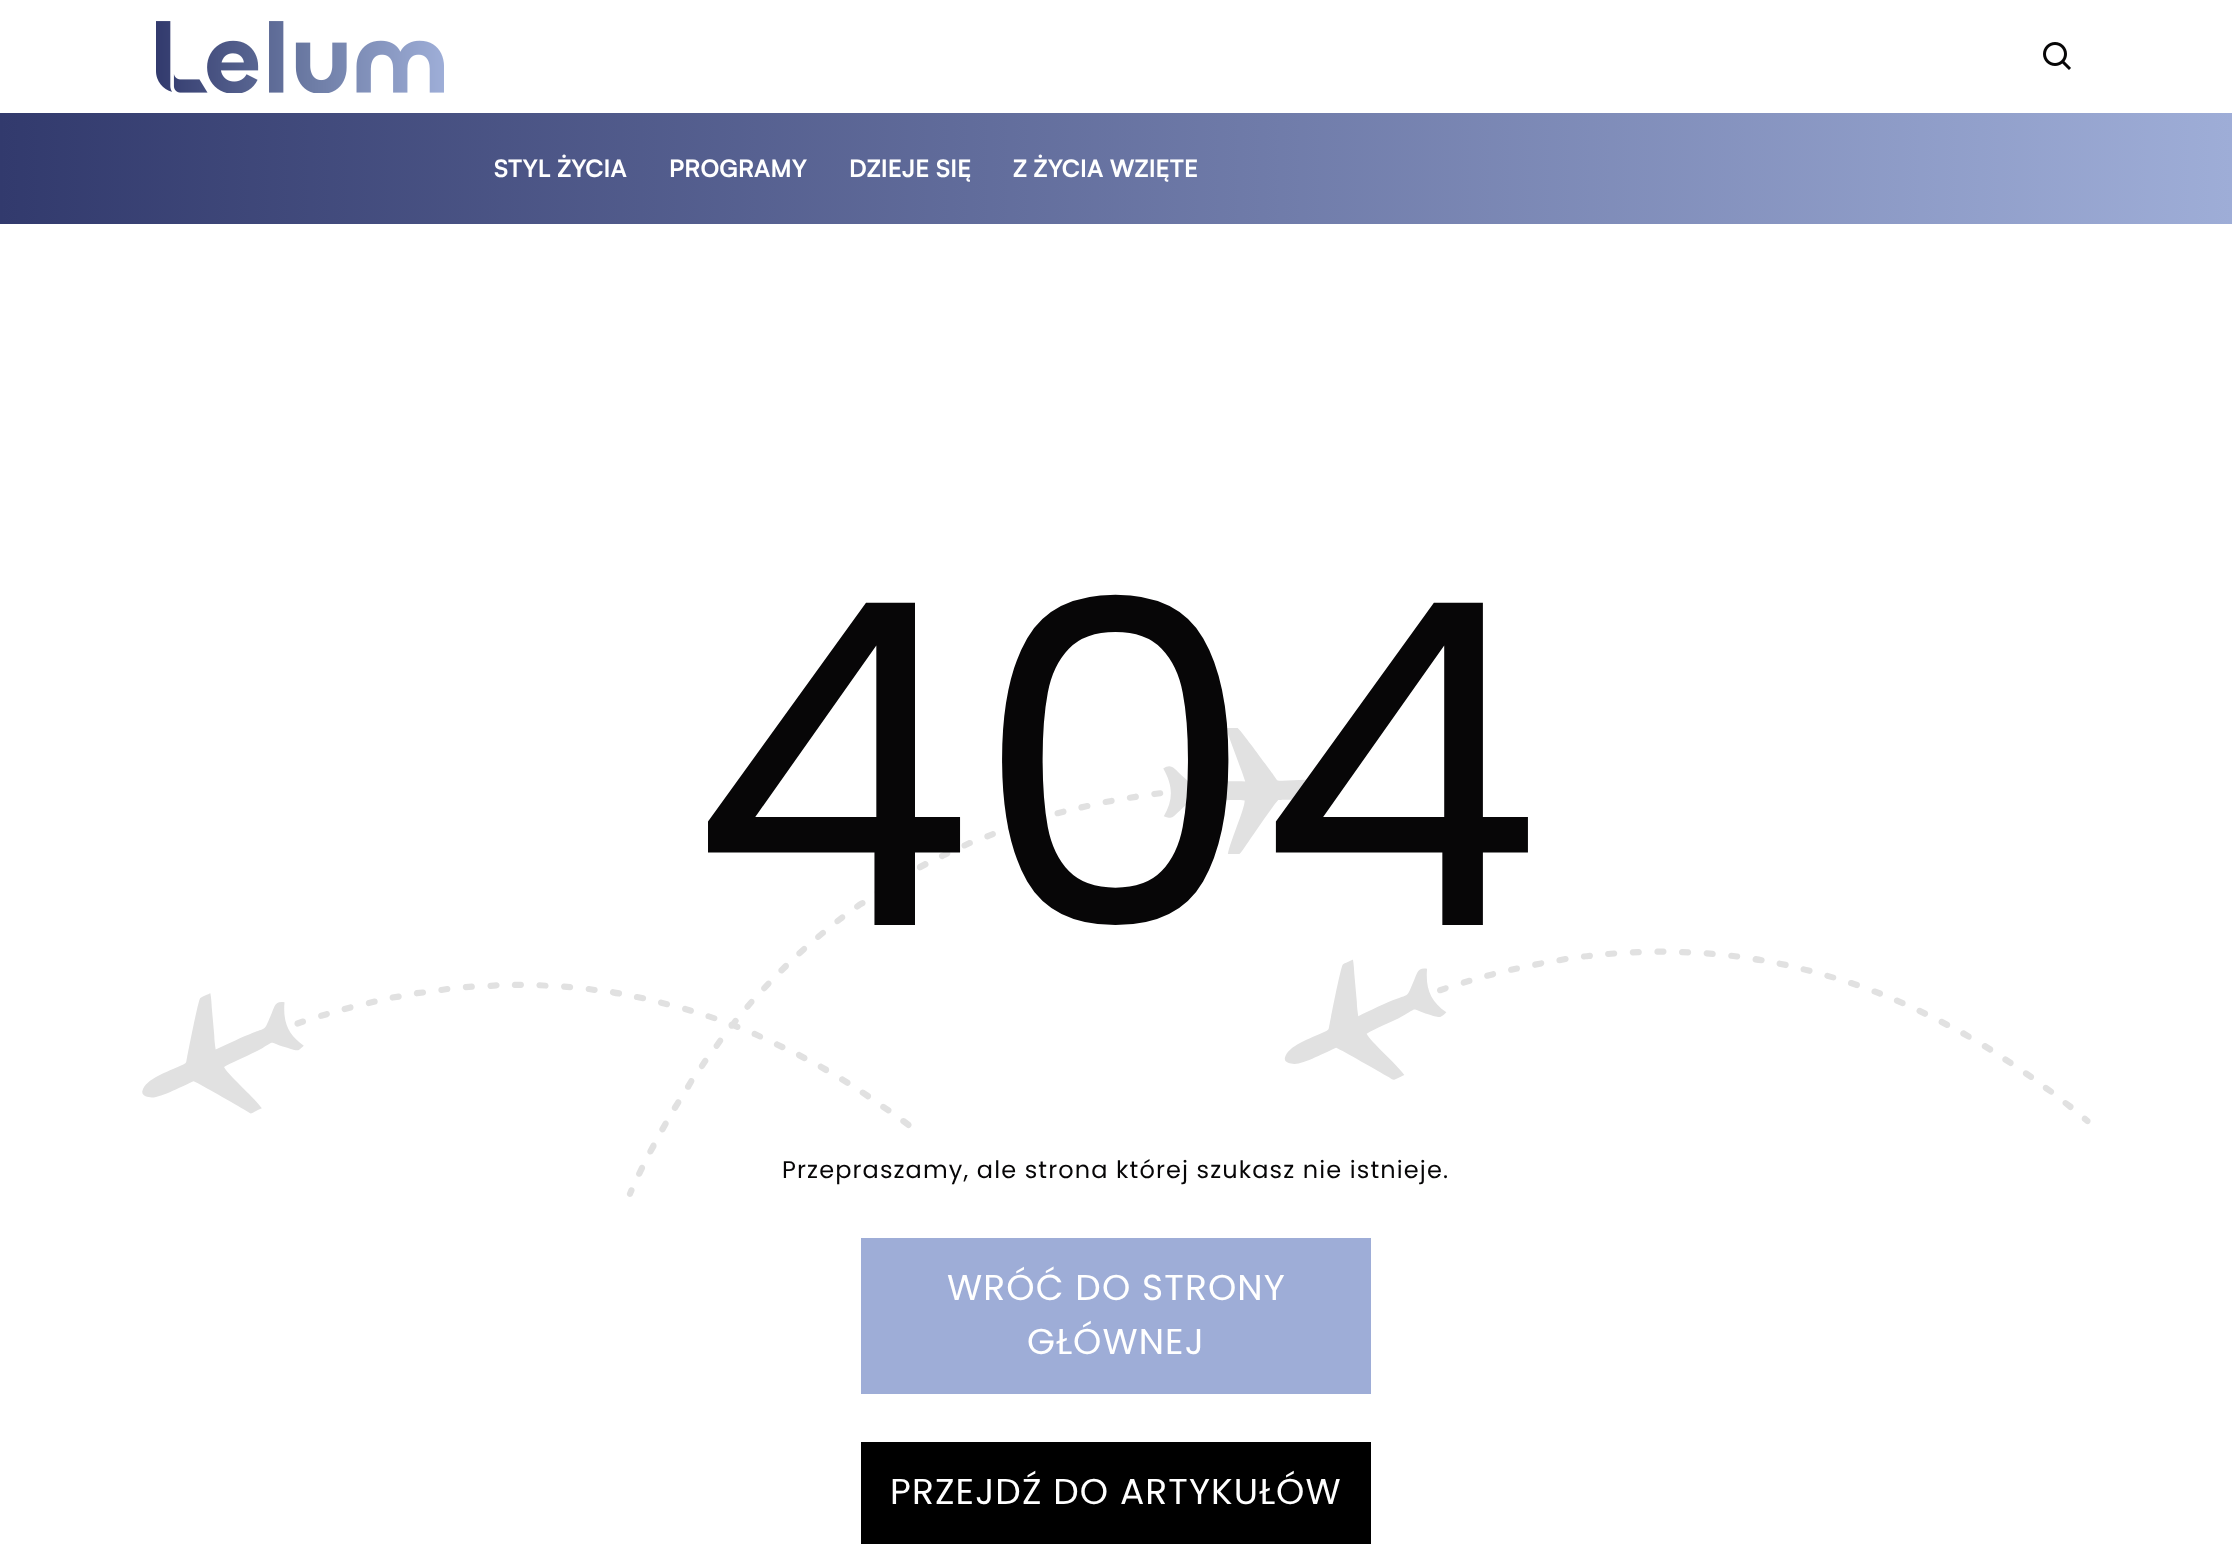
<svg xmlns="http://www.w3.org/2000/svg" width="2232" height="1549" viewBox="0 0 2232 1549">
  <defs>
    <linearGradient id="g1" gradientUnits="userSpaceOnUse" x1="0" y1="168" x2="2232" y2="168"><stop offset="0" stop-color="#323a6d"/><stop offset="1" stop-color="#9eadd7"/></linearGradient>
  </defs>
  <rect width="100%" height="100%" fill="#ffffff"/>
  <image x="156" y="21" width="288" height="72" href="img1.png"/>
  <image x="2043" y="42" width="28" height="28" href="img2.png"/>
  <rect x="0" y="113" width="2232" height="111" fill="url(#g1)"/>
  <text x="494" y="177" font-family="Satoshi" font-size="24" font-weight="bold" fill="#ffffff">STYL ŻYCIA</text>
  <text x="669" y="177" font-family="Satoshi" font-size="24" font-weight="bold" fill="#ffffff">PROGRAMY</text>
  <text x="849" y="177" font-family="Satoshi" font-size="24" font-weight="bold" fill="#ffffff">DZIEJE SIĘ</text>
  <text x="1013" y="177" font-family="Satoshi" font-size="24" font-weight="bold" fill="#ffffff">Z ŻYCIA WZIĘTE</text>
  <image x="142" y="728" width="1949" height="469" href="img3.png"/>
  <text x="690" y="925" font-family="Poppins" font-size="450" letter-spacing="1.12" fill="#070607">404</text>
  <text x="782" y="1178" font-family="Poppins" font-size="24" letter-spacing="1.12" fill="#070607">Przepraszamy, ale strona której szukasz nie istnieje.</text>
  <rect x="861" y="1238" width="510" height="156" fill="#9eadd7"/>
  <text x="947" y="1300" font-family="Poppins" font-size="36" letter-spacing="1.12" fill="#ffffff">WRÓĆ DO STRONY</text>
  <text x="1027" y="1354" font-family="Poppins" font-size="36" letter-spacing="1.12" fill="#ffffff">GŁÓWNEJ</text>
  <rect x="861" y="1442" width="510" height="102" fill="#000000"/>
  <text x="890" y="1504" font-family="Poppins" font-size="36" letter-spacing="1.12" fill="#ffffff">PRZEJDŹ DO ARTYKUŁÓW</text>
</svg>
